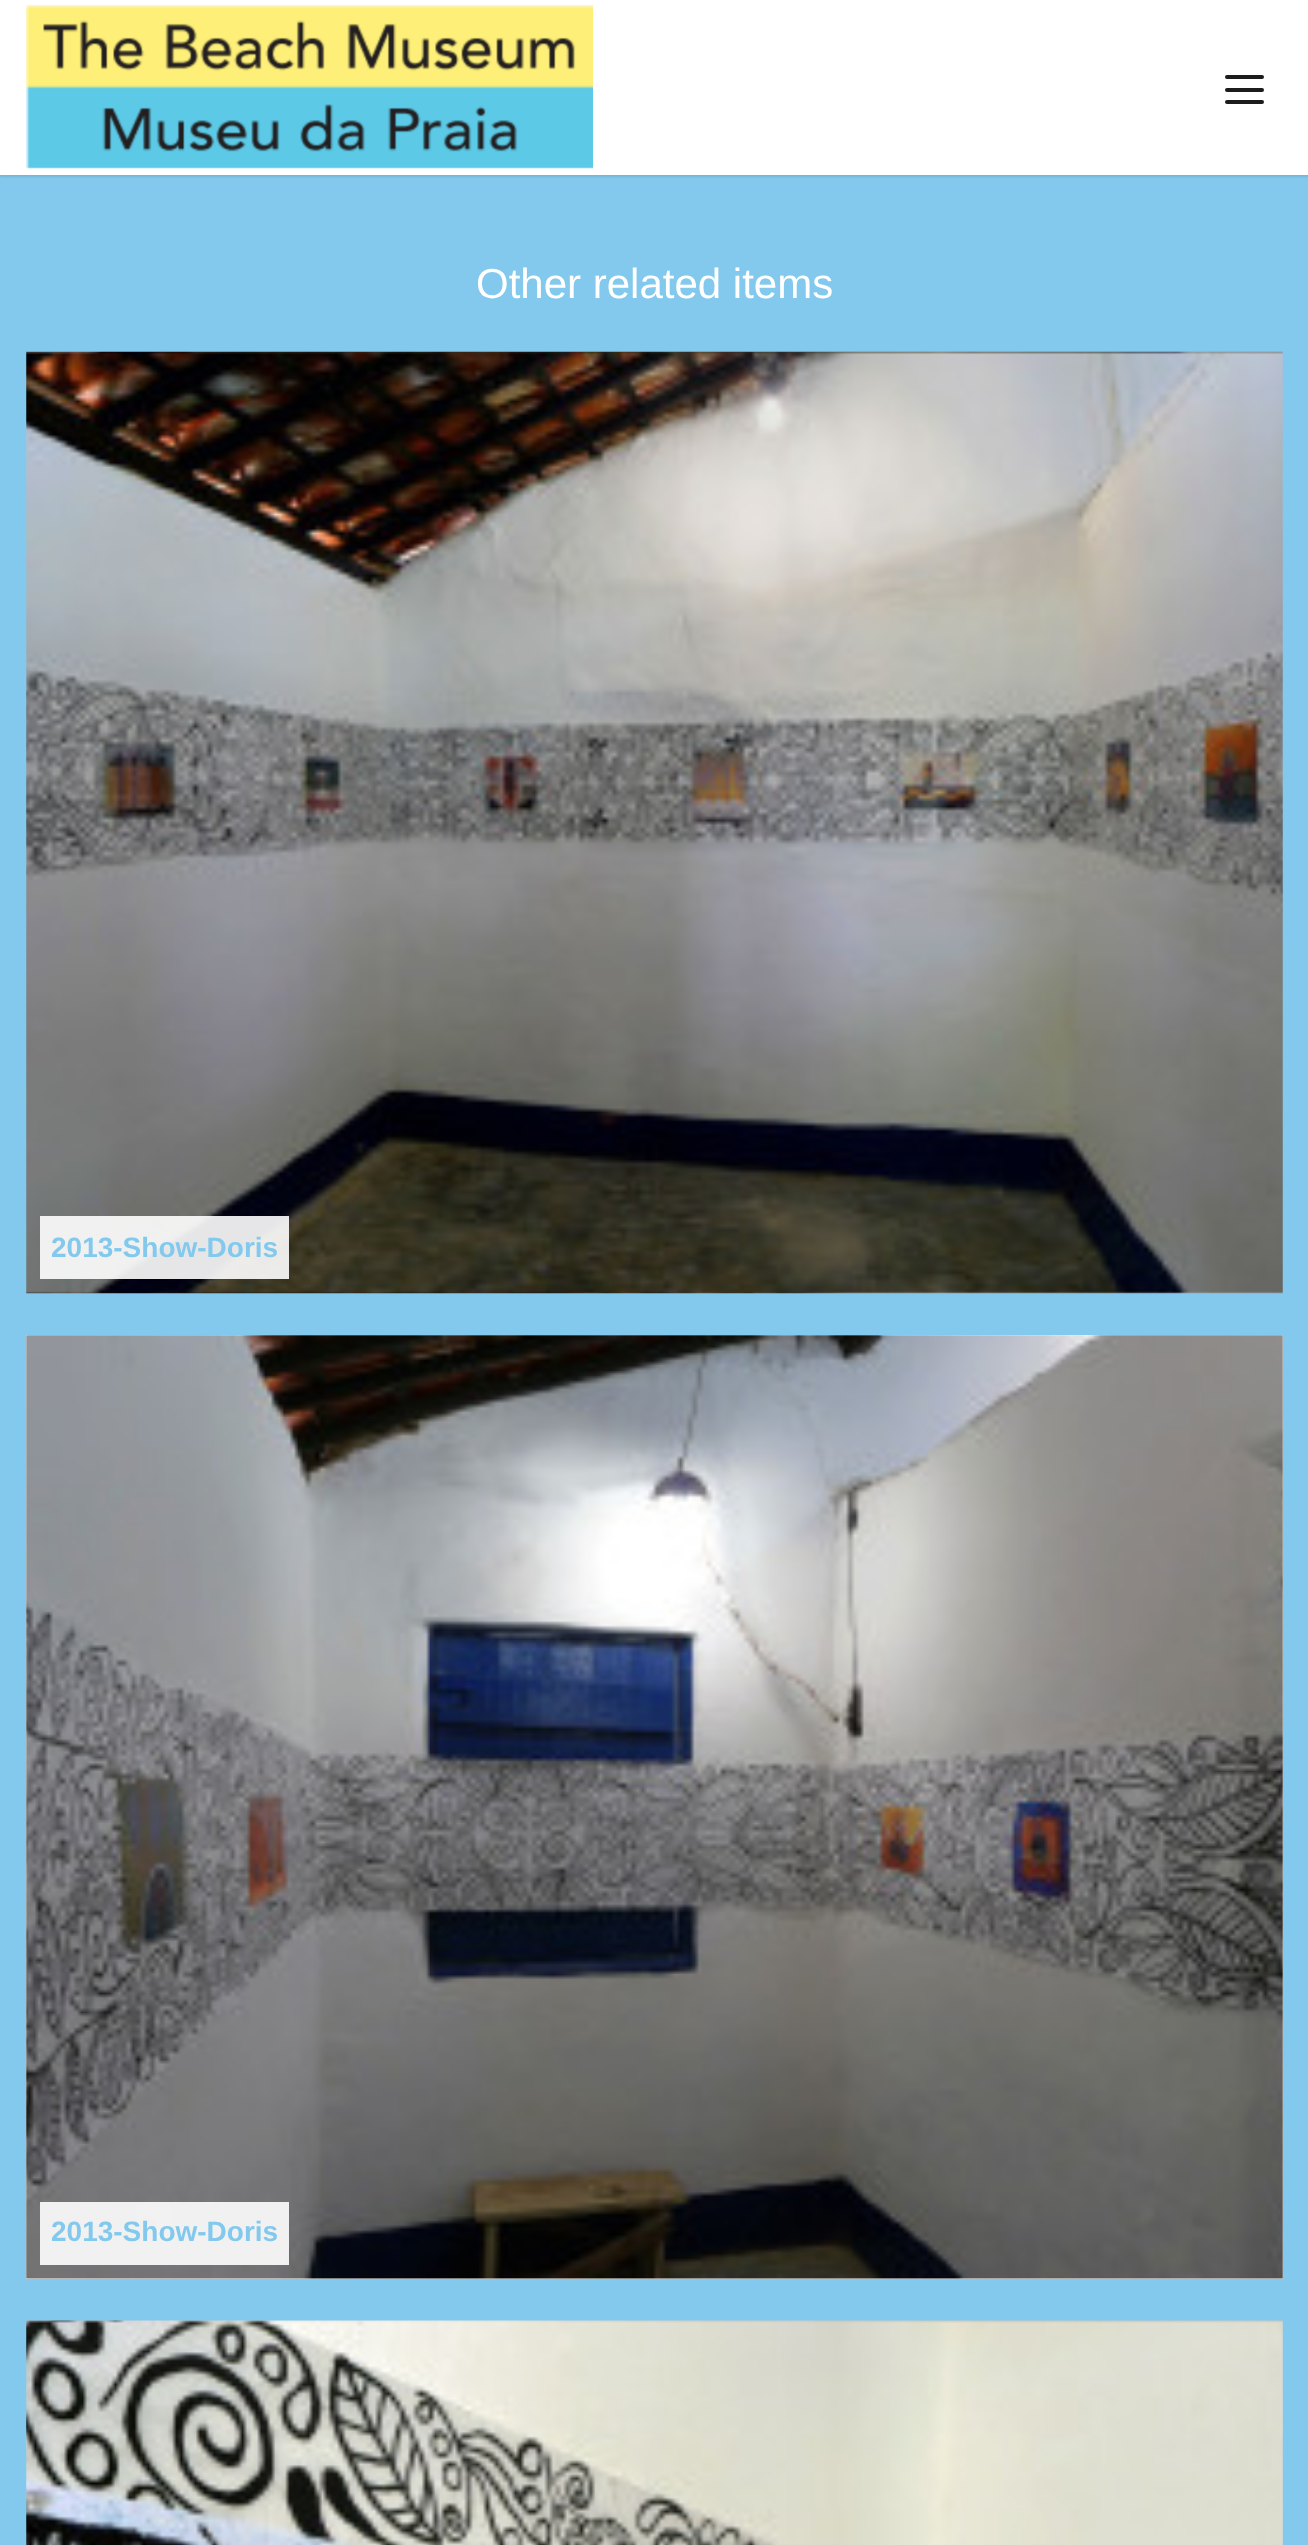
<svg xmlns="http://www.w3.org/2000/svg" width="1308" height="2545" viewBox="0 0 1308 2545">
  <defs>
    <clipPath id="clip1"><rect x="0" y="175" width="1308" height="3"/></clipPath>
    <filter id="blur1" x="-50%" y="-200%" width="200%" height="500%"><feGaussianBlur stdDeviation="1"/></filter>
  </defs>
  <rect width="100%" height="100%" fill="#ffffff"/>
  <rect x="0" y="175" width="1308" height="2370" fill="#82c9ed"/>
  <g clip-path="url(#clip1)">
    <rect x="0" y="2" width="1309" height="175" fill="#000000" fill-opacity="0.1" filter="url(#blur1)"/>
  </g>
  <image x="26" y="5" width="567" height="164" href="img1.png"/>
  <rect x="1225" y="75" width="39" height="4" rx="2" fill="#1c1c1c"/>
  <rect x="1225" y="88" width="39" height="4" rx="2" fill="#1c1c1c"/>
  <rect x="1225" y="100" width="39" height="4" rx="2" fill="#1c1c1c"/>
  <text x="476" y="298" font-family="Liberation Sans" font-size="42" fill="#ffffff">Other related items</text>
  <image x="26" y="351" width="1257" height="943" href="img2.png"/>
  <rect x="40" y="1216" width="249" height="63" fill="#ffffff" fill-opacity="0.9"/>
  <text x="51" y="1257" font-family="Liberation Sans" font-size="28" font-weight="bold" fill="#82c9ed">2013-Show-Doris</text>
  <rect x="26" y="1335" width="1257" height="944" fill="#ffffff"/>
  <image x="26" y="1335" width="1257" height="944" href="img3.png"/>
  <rect x="40" y="2202" width="249" height="63" fill="#ffffff" fill-opacity="0.9"/>
  <text x="51" y="2241" font-family="Liberation Sans" font-size="28" font-weight="bold" fill="#82c9ed">2013-Show-Doris</text>
  <image x="26" y="2320" width="1257" height="225" href="img4.png"/>
</svg>
